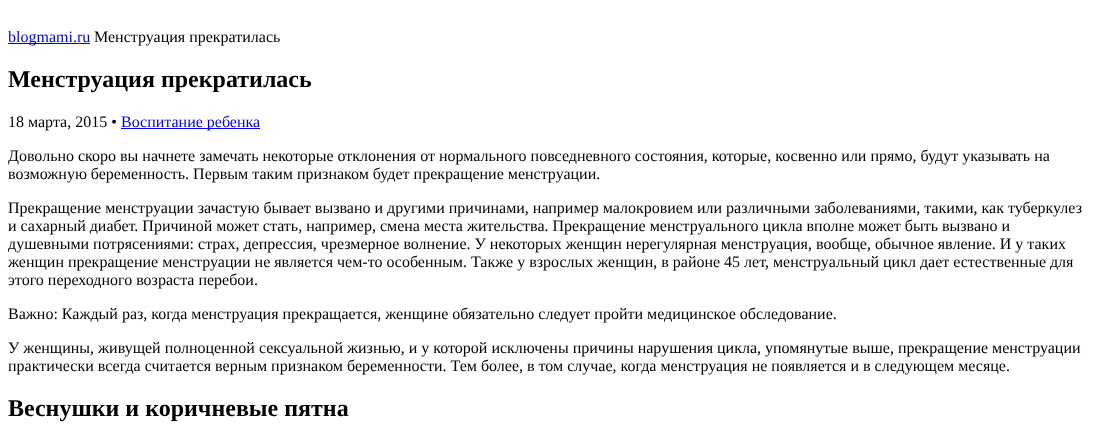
<svg xmlns="http://www.w3.org/2000/svg" width="1093" height="429" viewBox="0 0 1093 429">
  <rect width="100%" height="100%" fill="#ffffff"/>
  <rect x="8" y="43" width="82" height="1" fill="#0000ee"/>
  <text x="8" y="42" font-family="Liberation Serif" font-size="16" fill="#0000ee">blogmami.ru</text>
  <text x="94" y="42" font-family="Liberation Serif" font-size="16" fill="#000000">Менструация прекратилась</text>
  <text x="8" y="87" font-family="Liberation Serif" font-size="24" font-weight="bold" fill="#000000">Менструация прекратилась</text>
  <text x="8" y="127" font-family="Liberation Serif" font-size="16" fill="#000000">18 марта, 2015 •</text>
  <rect x="121" y="128" width="139" height="1" fill="#0000ee"/>
  <text x="121" y="127" font-family="Liberation Serif" font-size="16" fill="#0000ee">Воспитание ребенка</text>
  <text x="8" y="161" font-family="Liberation Serif" font-size="16" fill="#000000">Довольно скоро вы начнете замечать некоторые отклонения от нормального повседневного состояния, которые, косвенно или прямо, будут указывать на</text>
  <text x="8" y="179" font-family="Liberation Serif" font-size="16" fill="#000000">возможную беременность. Первым таким признаком будет прекращение менструации.</text>
  <text x="8" y="213" font-family="Liberation Serif" font-size="16" fill="#000000">Прекращение менструации зачастую бывает вызвано и другими причинами, например малокровием или различными заболеваниями, такими, как туберкулез</text>
  <text x="8" y="231" font-family="Liberation Serif" font-size="16" fill="#000000">и сахарный диабет. Причиной может стать, например, смена места жительства. Прекращение менструального цикла вполне может быть вызвано и</text>
  <text x="8" y="249" font-family="Liberation Serif" font-size="16" fill="#000000">душевными потрясениями: страх, депрессия, чрезмерное волнение. У некоторых женщин нерегулярная менструация, вообще, обычное явление. И у таких</text>
  <text x="8" y="267" font-family="Liberation Serif" font-size="16" fill="#000000">женщин прекращение менструации не является чем-то особенным. Также у взрослых женщин, в районе 45 лет, менструальный цикл дает естественные для</text>
  <text x="8" y="285" font-family="Liberation Serif" font-size="16" fill="#000000">этого переходного возраста перебои.</text>
  <text x="8" y="319" font-family="Liberation Serif" font-size="16" fill="#000000">Важно: Каждый раз, когда менструация прекращается, женщине обязательно следует пройти медицинское обследование.</text>
  <text x="8" y="353" font-family="Liberation Serif" font-size="16" fill="#000000">У женщины, живущей полноценной сексуальной жизнью, и у которой исключены причины нарушения цикла, упомянутые выше, прекращение менструации</text>
  <text x="8" y="371" font-family="Liberation Serif" font-size="16" fill="#000000">практически всегда считается верным признаком беременности. Тем более, в том случае, когда менструация не появляется и в следующем месяце.</text>
  <text x="8" y="416" font-family="Liberation Serif" font-size="24" font-weight="bold" fill="#000000">Веснушки и коричневые пятна</text>
</svg>
